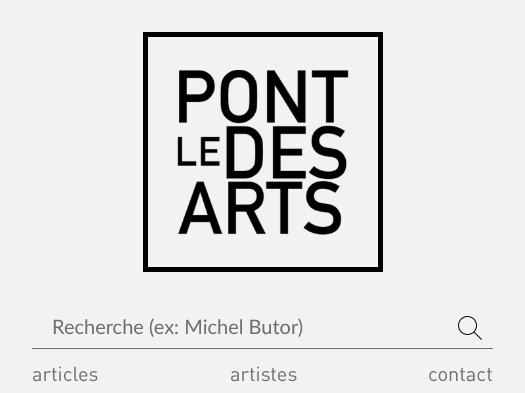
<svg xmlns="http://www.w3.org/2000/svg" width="525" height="393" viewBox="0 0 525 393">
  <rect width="100%" height="100%" fill="#f2f2f2"/>
  <rect x="145.5" y="34.5" width="235" height="235" fill="none" stroke="#000000" stroke-width="5"/>
  <image x="177" y="70" width="172" height="165" href="img1.png"/>
  <rect x="32" y="348" width="461" height="1" fill="#707070"/>
  <text x="52" y="334" font-family="Lato" font-size="20" fill="#6f6f6f">Recherche (ex: Michel Butor)</text>
  <image x="458" y="316" width="24" height="24" href="img2.png"/>
  <text x="32" y="381" font-family="DIN" font-size="20" fill="#6f6f6f">articles</text>
  <text x="230" y="381" font-family="DIN" font-size="20" fill="#6f6f6f">artistes</text>
  <text x="428" y="381" font-family="DIN" font-size="20" fill="#6f6f6f">contact</text>
</svg>
